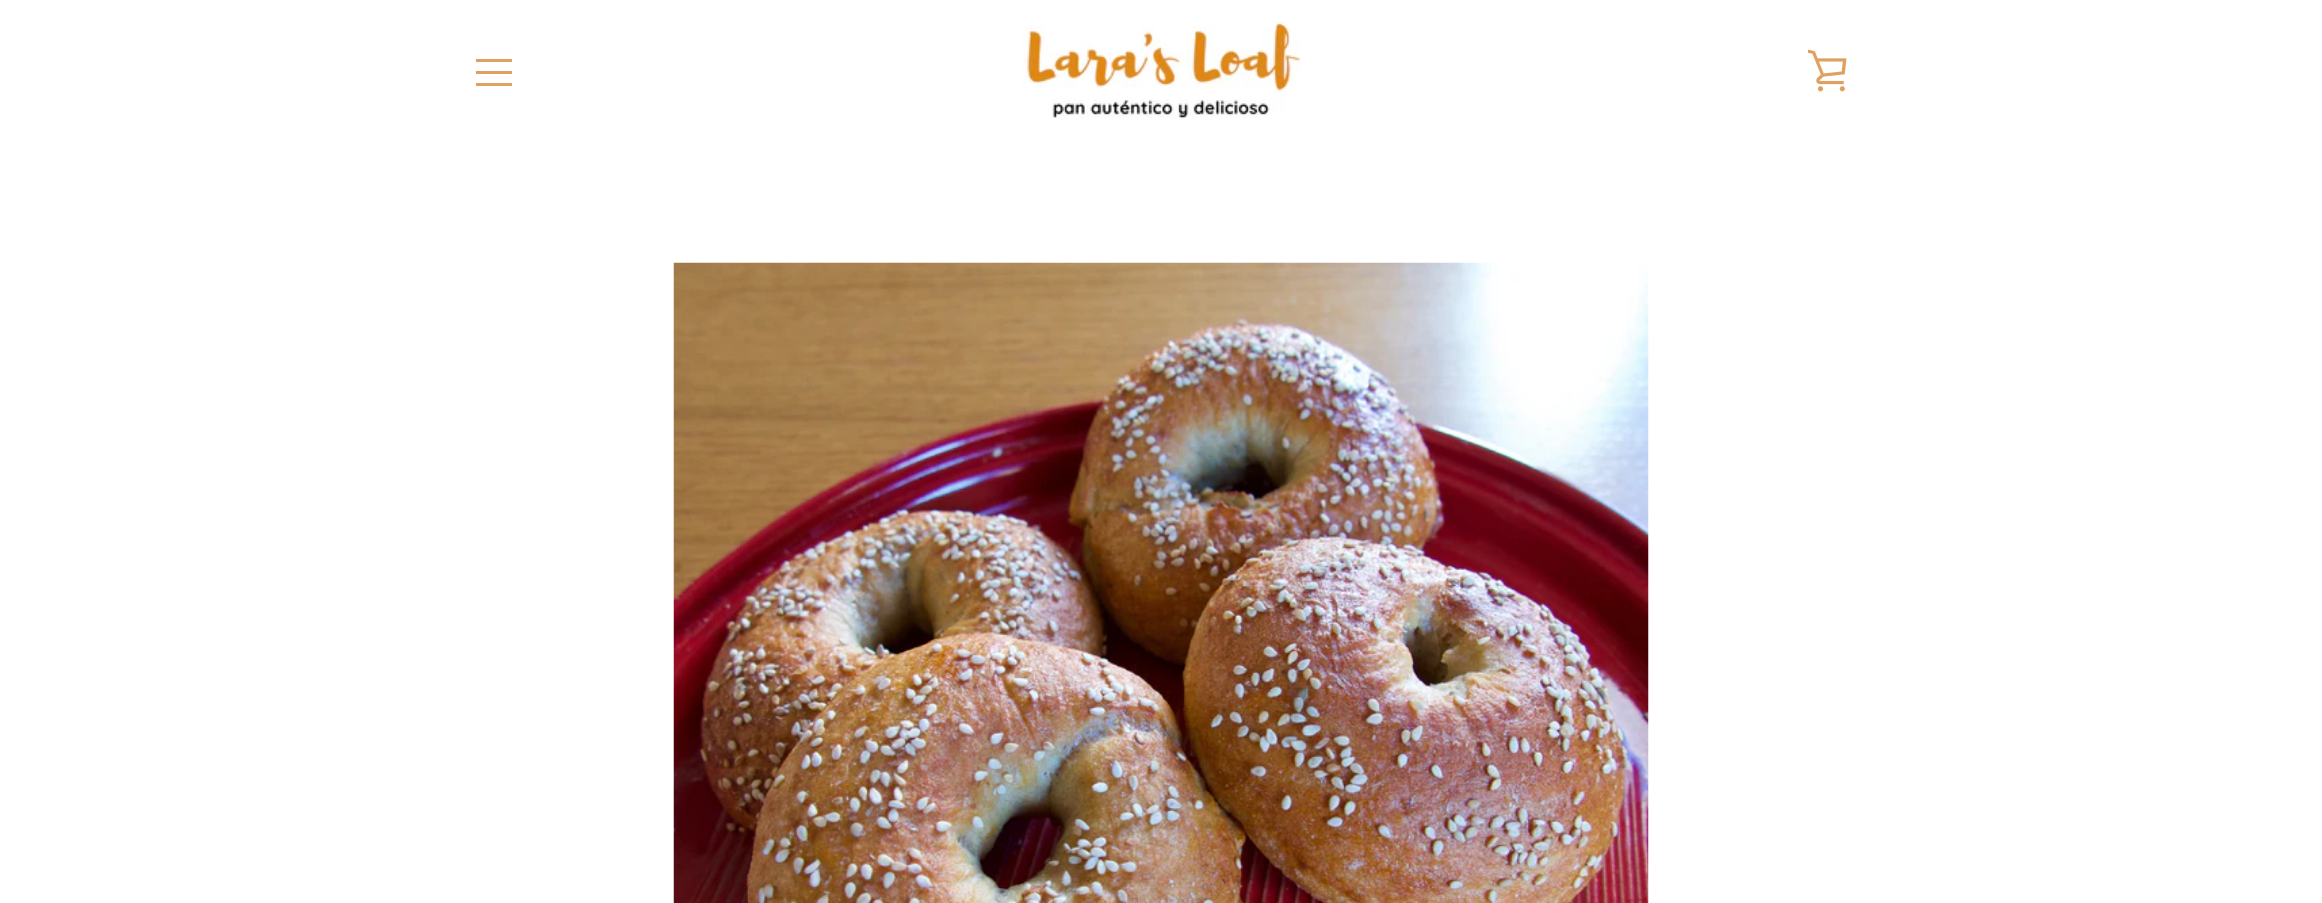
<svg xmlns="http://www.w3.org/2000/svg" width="2322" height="903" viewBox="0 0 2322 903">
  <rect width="100%" height="100%" fill="#ffffff"/>
  <rect x="476" y="59" width="36" height="3" fill="#dfa160"/>
  <rect x="476" y="71" width="36" height="3" fill="#dfa160"/>
  <rect x="476" y="83" width="36" height="3" fill="#dfa160"/>
  <image x="1021" y="21" width="280" height="98" href="img1.png"/>
  <image x="1808" y="49" width="39" height="43" href="img2.png"/>
  <image x="673" y="262" width="976" height="641" href="img3.png"/>
</svg>
